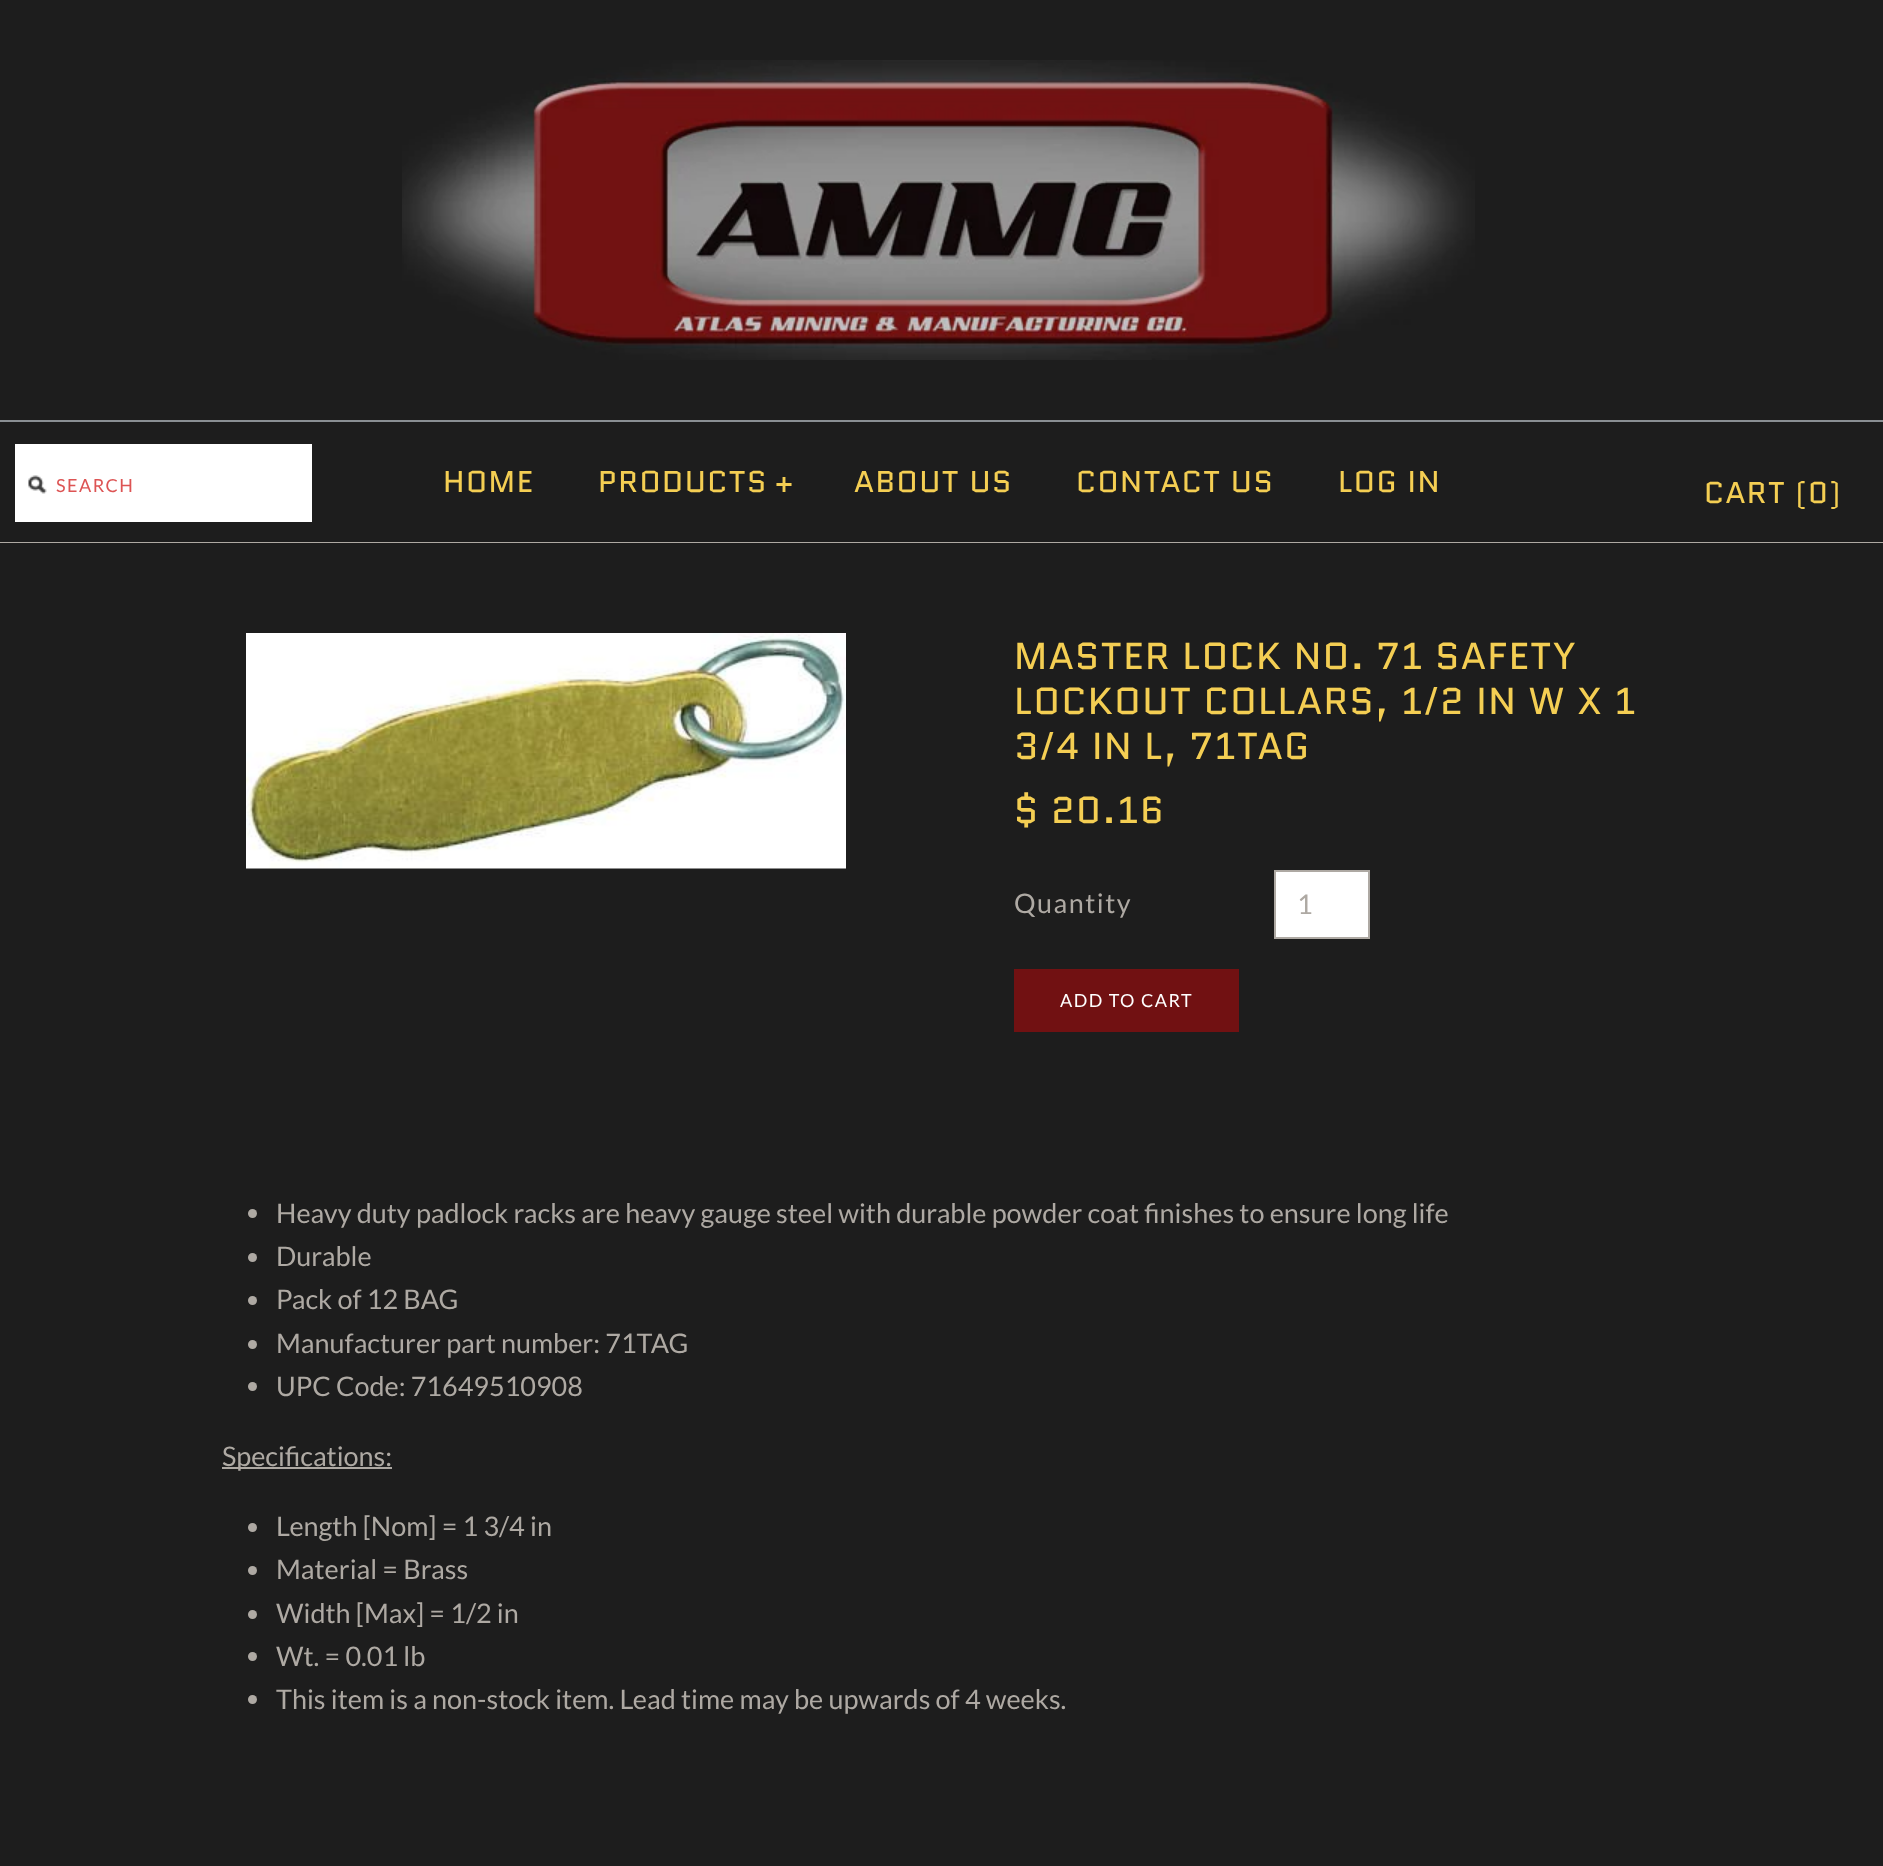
<svg xmlns="http://www.w3.org/2000/svg" width="1883" height="1866" viewBox="0 0 1883 1866">
  <rect width="100%" height="100%" fill="#1d1d1d"/>
  <image x="402" y="60" width="1073" height="300" href="img1.png"/>
  <rect x="0" y="542" width="1883" height="1" fill="#aea9a3"/>
  <rect x="0" y="420" width="1883" height="2" fill="#8a8f93"/>
  <rect x="15" y="444" width="297" height="78" fill="#ffffff"/>
  <image x="28" y="475" width="19" height="19" href="img2.png"/>
  <text x="56" y="492" font-family="Lato" font-size="18" letter-spacing="1.5" fill="#dd5454">SEARCH</text>
  <text x="443" y="492" font-family="Quantico" font-size="30" letter-spacing="1.5" fill="#f4ce53">HOME</text>
  <text x="598" y="492" font-family="Quantico" font-size="30" letter-spacing="1.5" fill="#f4ce53">PRODUCTS</text>
  <text x="775" y="492" font-family="Quantico" font-size="30" letter-spacing="1.5" fill="#f4ce53">+</text>
  <text x="854" y="492" font-family="Quantico" font-size="30" letter-spacing="1.5" fill="#f4ce53">ABOUT US</text>
  <text x="1076" y="492" font-family="Quantico" font-size="30" letter-spacing="1.5" fill="#f4ce53">CONTACT US</text>
  <text x="1338" y="492" font-family="Quantico" font-size="30" letter-spacing="1.5" fill="#f4ce53">LOG IN</text>
  <text x="1704" y="503" font-family="Quantico" font-size="30" letter-spacing="1.5" fill="#f4ce53">CART (0)</text>
  <image x="246" y="633" width="600" height="236" href="img3.png"/>
  <text x="1014" y="669" font-family="Quantico" font-size="37.5" letter-spacing="1.5" fill="#f4ce53">MASTER LOCK NO. 71 SAFETY</text>
  <text x="1014" y="714" font-family="Quantico" font-size="37.5" letter-spacing="1.5" fill="#f4ce53">LOCKOUT COLLARS, 1/2 IN W X 1</text>
  <text x="1014" y="759" font-family="Quantico" font-size="37.5" letter-spacing="1.5" fill="#f4ce53">3/4 IN L, 71TAG</text>
  <text x="1014" y="823" font-family="Quantico" font-size="37.5" letter-spacing="1.5" fill="#f4ce53">$ 20.16</text>
  <text x="1014" y="913" font-family="Lato" font-size="27" letter-spacing="1.5" fill="#aea9a3">Quantity</text>
  <rect x="1275" y="871" width="94" height="67" fill="#ffffff" stroke="#aea9a3" stroke-width="2"/>
  <text x="1297" y="914" font-family="Lato" font-size="27" letter-spacing="1.5" fill="#aea9a3">1</text>
  <rect x="1014" y="969" width="225" height="63" fill="#711112"/>
  <text x="1060" y="1007" font-family="Lato" font-size="18" letter-spacing="1.5" fill="#ffffff">ADD TO CART</text>
  <circle cx="252.5" cy="1213.5" r="4.5" fill="#aea9a3"/>
  <text x="276" y="1223" font-family="Lato" font-size="27" fill="#aea9a3">Heavy duty padlock racks are heavy gauge steel with durable powder coat finishes to ensure long life</text>
  <circle cx="252.5" cy="1257.5" r="4.5" fill="#aea9a3"/>
  <text x="276" y="1266" font-family="Lato" font-size="27" fill="#aea9a3">Durable</text>
  <circle cx="252.5" cy="1300.5" r="4.5" fill="#aea9a3"/>
  <text x="276" y="1309" font-family="Lato" font-size="27" fill="#aea9a3">Pack of 12 BAG</text>
  <circle cx="252.5" cy="1344.5" r="4.5" fill="#aea9a3"/>
  <text x="276" y="1353" font-family="Lato" font-size="27" fill="#aea9a3">Manufacturer part number: 71TAG</text>
  <circle cx="252.5" cy="1386.5" r="4.5" fill="#aea9a3"/>
  <text x="276" y="1396" font-family="Lato" font-size="27" fill="#aea9a3">UPC Code: 71649510908</text>
  <rect x="222" y="1467" width="170" height="2" fill="#aea9a3"/>
  <text x="222" y="1466" font-family="Lato" font-size="27" fill="#aea9a3">Specifications:</text>
  <circle cx="252.5" cy="1527.5" r="4.5" fill="#aea9a3"/>
  <text x="276" y="1536" font-family="Lato" font-size="27" fill="#aea9a3">Length [Nom] = 1 3/4 in</text>
  <circle cx="252.5" cy="1570.5" r="4.5" fill="#aea9a3"/>
  <text x="276" y="1579" font-family="Lato" font-size="27" fill="#aea9a3">Material = Brass</text>
  <circle cx="252.5" cy="1614.5" r="4.5" fill="#aea9a3"/>
  <text x="276" y="1623" font-family="Lato" font-size="27" fill="#aea9a3">Width [Max] = 1/2 in</text>
  <circle cx="252.5" cy="1656.5" r="4.5" fill="#aea9a3"/>
  <text x="276" y="1666" font-family="Lato" font-size="27" fill="#aea9a3">Wt. = 0.01 lb</text>
  <circle cx="252.5" cy="1699.5" r="4.5" fill="#aea9a3"/>
  <text x="276" y="1709" font-family="Lato" font-size="27" fill="#aea9a3">This item is a non-stock item. Lead time may be upwards of 4 weeks.</text>
</svg>
